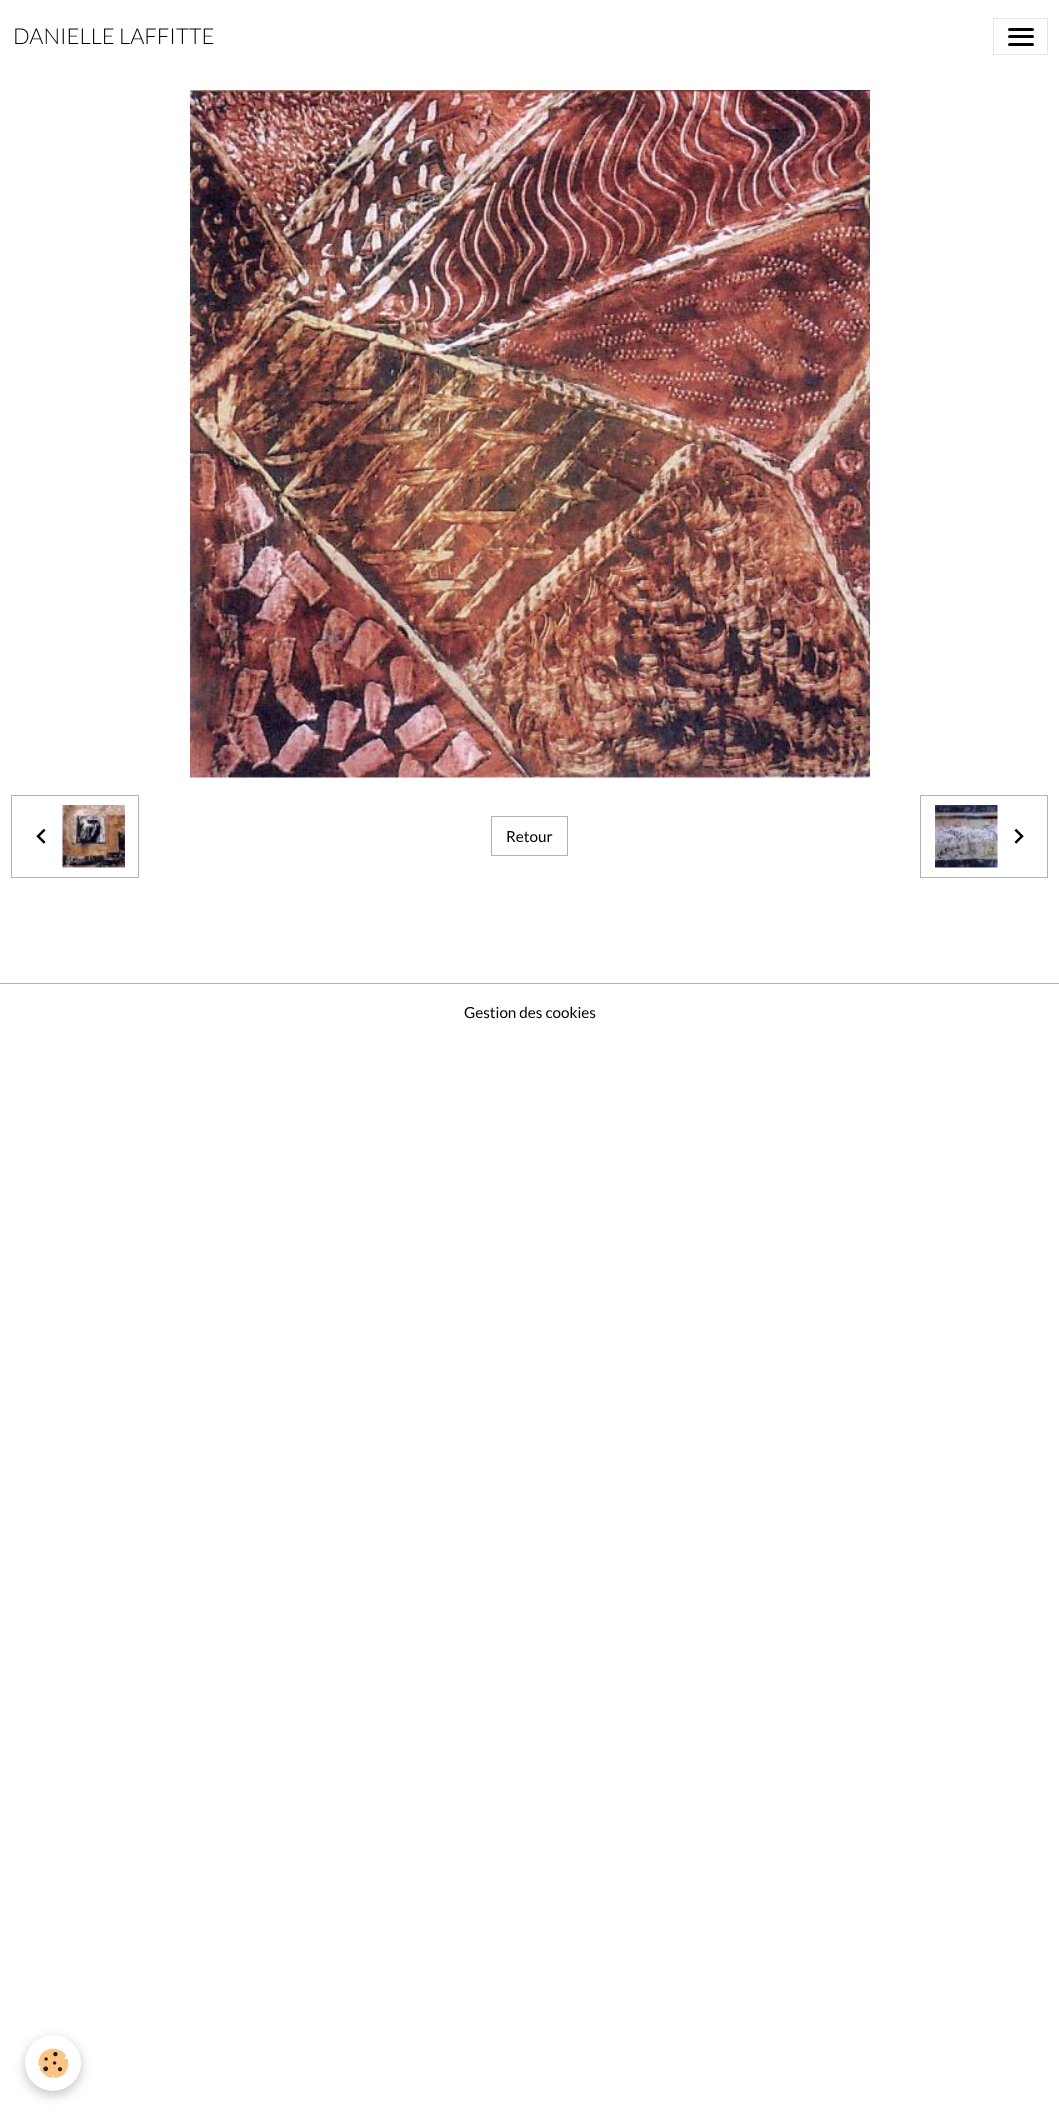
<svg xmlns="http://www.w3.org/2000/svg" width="1059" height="2115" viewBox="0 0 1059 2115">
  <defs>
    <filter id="blur1" x="-50%" y="-200%" width="200%" height="500%"><feGaussianBlur stdDeviation="6"/></filter>
  </defs>
  <rect width="100%" height="100%" fill="#ffffff"/>
  <text x="13" y="44" font-family="Lato" font-size="21.9" font-weight="300" fill="#000000">DANIELLE LAFFITTE</text>
  <rect x="993.5" y="18.5" width="54" height="36" fill="none" stroke="#e6e6e6"/>
  <rect x="1008" y="28" width="26" height="3" rx="1.5" fill="#000000"/>
  <rect x="1008" y="35" width="26" height="3" rx="1.5" fill="#000000"/>
  <rect x="1008" y="43" width="26" height="3" rx="1.5" fill="#000000"/>
  <image x="190" y="90" width="680" height="688" href="img1.png"/>
  <rect x="11.5" y="795.5" width="127" height="82" fill="none" stroke="#b3b3b3"/>
  <image x="36" y="828" width="10" height="16" href="img2.png"/>
  <image x="62" y="805" width="63" height="63" href="img3.png"/>
  <rect x="491.5" y="816.5" width="76" height="39" fill="none" stroke="#b3b3b3"/>
  <text x="506" y="842" font-family="Lato" font-size="15.25" fill="#000000">Retour</text>
  <rect x="920.5" y="795.5" width="127" height="82" fill="none" stroke="#b3b3b3"/>
  <image x="935" y="805" width="63" height="63" href="img4.png"/>
  <image x="1014" y="828" width="10" height="16" href="img5.png"/>
  <rect x="0" y="983" width="1059" height="1" fill="#b3b3b3"/>
  <text x="464" y="1018" font-family="Lato" font-size="15.25" fill="#000000">Gestion des cookies</text>
  <rect x="25" y="2039" width="56" height="56" rx="28" fill="#000000" fill-opacity="0.24" filter="url(#blur1)"/>
  <circle cx="53" cy="2063" r="28" fill="#ffffff"/>
  <image x="38" y="2048" width="31" height="30" href="img6.png"/>
</svg>
